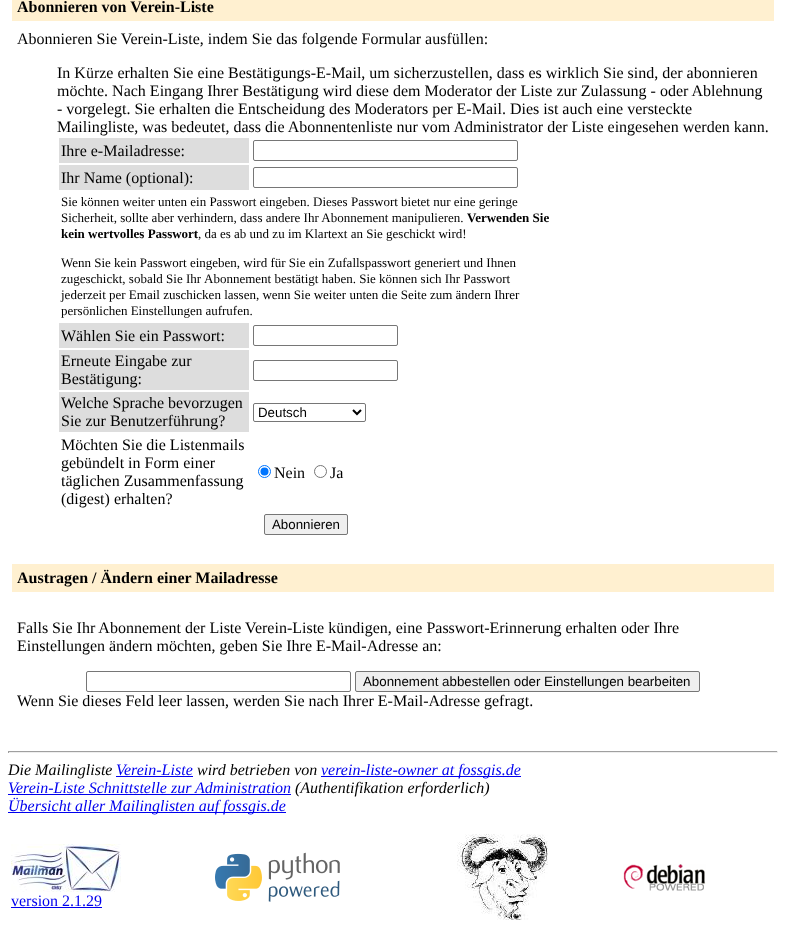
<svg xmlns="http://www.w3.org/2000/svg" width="786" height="939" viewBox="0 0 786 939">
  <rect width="100%" height="100%" fill="#ffffff"/>
  <rect x="12" y="0" width="762" height="21" fill="#fff0d0"/>
  <text x="17" y="12" font-family="Liberation Serif" font-size="16" font-weight="bold" fill="#000000">Abonnieren von Verein-Liste</text>
  <text x="17" y="44" font-family="Liberation Serif" font-size="16" fill="#000000">Abonnieren Sie Verein-Liste, indem Sie das folgende Formular ausfüllen:</text>
  <text x="57" y="78" font-family="Liberation Serif" font-size="16" fill="#000000">In Kürze erhalten Sie eine Bestätigungs-E-Mail, um sicherzustellen, dass es wirklich Sie sind, der abonnieren</text>
  <text x="57" y="96" font-family="Liberation Serif" font-size="16" fill="#000000">möchte. Nach Eingang Ihrer Bestätigung wird diese dem Moderator der Liste zur Zulassung - oder Ablehnung</text>
  <text x="57" y="114" font-family="Liberation Serif" font-size="16" fill="#000000">- vorgelegt. Sie erhalten die Entscheidung des Moderators per E-Mail. Dies ist auch eine versteckte</text>
  <text x="57" y="132" font-family="Liberation Serif" font-size="16" fill="#000000">Mailingliste, was bedeutet, dass die Abonnentenliste nur vom Administrator der Liste eingesehen werden kann.</text>
  <rect x="59" y="138" width="190" height="25" fill="#dddddd"/>
  <text x="61" y="156" font-family="Liberation Serif" font-size="16" fill="#000000">Ihre e-Mailadresse:</text>
  <rect x="253.5" y="140.5" width="264" height="20" rx="1.5" fill="none" stroke="#767676"/>
  <rect x="59" y="165" width="190" height="25" fill="#dddddd"/>
  <text x="61" y="183" font-family="Liberation Serif" font-size="16" fill="#000000">Ihr Name (optional):</text>
  <rect x="253.5" y="167.5" width="264" height="20" rx="1.5" fill="none" stroke="#767676"/>
  <text x="61" y="206" font-family="Liberation Serif" font-size="13" fill="#000000">Sie können weiter unten ein Passwort eingeben. Dieses Passwort bietet nur eine geringe</text>
  <text x="61" y="222" font-family="Liberation Serif" font-size="13" fill="#000000">Sicherheit, sollte aber verhindern, dass andere Ihr Abonnement manipulieren.</text>
  <text x="467" y="222" font-family="Liberation Serif" font-size="13" font-weight="bold" fill="#000000">Verwenden Sie</text>
  <text x="61" y="238" font-family="Liberation Serif" font-size="13" font-weight="bold" fill="#000000">kein wertvolles Passwort</text>
  <text x="198" y="238" font-family="Liberation Serif" font-size="13" fill="#000000">, da es ab und zu im Klartext an Sie geschickt wird!</text>
  <text x="61" y="267" font-family="Liberation Serif" font-size="13" fill="#000000">Wenn Sie kein Passwort eingeben, wird für Sie ein Zufallspasswort generiert und Ihnen</text>
  <text x="61" y="283" font-family="Liberation Serif" font-size="13" fill="#000000">zugeschickt, sobald Sie Ihr</text>
  <text x="204" y="283" font-family="Liberation Serif" font-size="13" fill="#000000">Abonnement bestätigt haben. Sie können sich Ihr Passwort</text>
  <text x="61" y="299" font-family="Liberation Serif" font-size="13" fill="#000000">jederzeit per Email zuschicken lassen, wenn Sie weiter unten die Seite zum ändern Ihrer</text>
  <text x="61" y="315" font-family="Liberation Serif" font-size="13" fill="#000000">persönlichen Einstellungen aufrufen.</text>
  <rect x="59" y="323" width="190" height="25" fill="#dddddd"/>
  <text x="61" y="341" font-family="Liberation Serif" font-size="16" fill="#000000">Wählen Sie ein Passwort:</text>
  <rect x="253.5" y="325.5" width="144" height="20" rx="1.5" fill="none" stroke="#767676"/>
  <rect x="59" y="350" width="190" height="40" fill="#dddddd"/>
  <text x="61" y="366" font-family="Liberation Serif" font-size="16" fill="#000000">Erneute Eingabe zur</text>
  <text x="61" y="384" font-family="Liberation Serif" font-size="16" fill="#000000">Bestätigung:</text>
  <rect x="253.5" y="360.5" width="144" height="20" rx="1.5" fill="none" stroke="#767676"/>
  <rect x="59" y="392" width="190" height="40" fill="#dddddd"/>
  <text x="61" y="408" font-family="Liberation Serif" font-size="16" fill="#000000">Welche Sprache bevorzugen</text>
  <text x="61" y="426" font-family="Liberation Serif" font-size="16" fill="#000000">Sie zur Benutzerführung?</text>
  <rect x="253.5" y="403.5" width="112" height="18" rx="1.5" fill="none" stroke="#767676"/>
  <path d="M353 410L357 414L361 410" fill="none" stroke="#000000" stroke-width="2"/>
  <text x="258" y="417" font-family="Liberation Sans" font-size="13.3" fill="#000000">Deutsch</text>
  <text x="61" y="450" font-family="Liberation Serif" font-size="16" fill="#000000">Möchten Sie die Listenmails</text>
  <text x="61" y="468" font-family="Liberation Serif" font-size="16" fill="#000000">gebündelt in Form einer</text>
  <text x="61" y="486" font-family="Liberation Serif" font-size="16" fill="#000000">täglichen Zusammenfassung</text>
  <text x="61" y="504" font-family="Liberation Serif" font-size="16" fill="#000000">(digest) erhalten?</text>
  <circle cx="264.5" cy="471.5" r="6" fill="none" stroke="#0075ff"/>
  <circle cx="264.5" cy="471.5" r="4" fill="#0075ff"/>
  <text x="274" y="478" font-family="Liberation Serif" font-size="16" fill="#000000">Nein</text>
  <circle cx="320.5" cy="471.5" r="6" fill="none" stroke="#767676"/>
  <text x="330" y="478" font-family="Liberation Serif" font-size="16" fill="#000000">Ja</text>
  <rect x="264.5" y="514.5" width="83" height="20" rx="1.5" fill="#efefef" stroke="#767676"/>
  <text x="272" y="529" font-family="Liberation Sans" font-size="13.3" fill="#000000">Abonnieren</text>
  <rect x="12" y="564" width="762" height="28" fill="#fff0d0"/>
  <text x="17" y="583" font-family="Liberation Serif" font-size="16" font-weight="bold" fill="#000000">Austragen / Ändern einer Mailadresse</text>
  <text x="17" y="633" font-family="Liberation Serif" font-size="16" fill="#000000">Falls Sie Ihr Abonnement der Liste Verein-Liste kündigen, eine Passwort-Erinnerung erhalten oder Ihre</text>
  <text x="17" y="651" font-family="Liberation Serif" font-size="16" fill="#000000">Einstellungen ändern möchten, geben Sie Ihre E-Mail-Adresse an:</text>
  <rect x="86.5" y="671.5" width="264" height="20" rx="1.5" fill="none" stroke="#767676"/>
  <rect x="355.5" y="671.5" width="344" height="20" rx="1.5" fill="#efefef" stroke="#767676"/>
  <text x="363" y="686" font-family="Liberation Sans" font-size="13.3" fill="#000000">Abonnement abbestellen oder Einstellungen bearbeiten</text>
  <text x="17" y="706" font-family="Liberation Serif" font-size="16" fill="#000000">Wenn Sie dieses Feld leer lassen, werden Sie nach Ihrer E-Mail-Adresse gefragt.</text>
  <rect x="8" y="751" width="770" height="1" fill="#9f9f9f"/>
  <rect x="777" y="751" width="1" height="2" fill="#eeeeee"/>
  <rect x="8" y="752" width="770" height="1" fill="#eeeeee"/>
  <rect x="8" y="751" width="1" height="2" fill="#9f9f9f"/>
  <text x="8" y="775" font-family="Liberation Serif" font-size="16" font-style="italic" fill="#000000">Die Mailingliste</text>
  <text x="116" y="775" font-family="Liberation Serif" font-size="16" font-style="italic" fill="#0000ee">Verein-Liste</text>
  <rect x="116" y="776" width="77" height="1" fill="#0000ee"/>
  <text x="197" y="775" font-family="Liberation Serif" font-size="16" font-style="italic" fill="#000000">wird betrieben von</text>
  <rect x="321" y="776" width="200" height="1" fill="#0000ee"/>
  <text x="321" y="775" font-family="Liberation Serif" font-size="16" font-style="italic" fill="#0000ee">verein-liste-owner at fossgis.de</text>
  <text x="8" y="793" font-family="Liberation Serif" font-size="16" font-style="italic" fill="#0000ee">Verein-Liste Schnittstelle zur Administration</text>
  <rect x="8" y="794" width="283" height="1" fill="#0000ee"/>
  <text x="295" y="793" font-family="Liberation Serif" font-size="16" font-style="italic" fill="#000000">(Authentifikation erforderlich)</text>
  <rect x="8" y="812" width="278" height="1" fill="#0000ee"/>
  <text x="8" y="811" font-family="Liberation Serif" font-size="16" font-style="italic" fill="#0000ee">Übersicht aller Mailinglisten auf fossgis.de</text>
  <image x="215" y="852" width="125" height="50" href="img1.png"/>
  <image x="457" y="834" width="91" height="86" href="img2.png"/>
  <image x="623" y="864" width="83" height="27" href="img3.png"/>
  <image x="11" y="844" width="110" height="48" href="img4.png"/>
  <text x="11" y="906" font-family="Liberation Serif" font-size="16" fill="#0000ee">version 2.1.29</text>
  <rect x="11" y="907" width="91" height="1" fill="#0000ee"/>
</svg>
